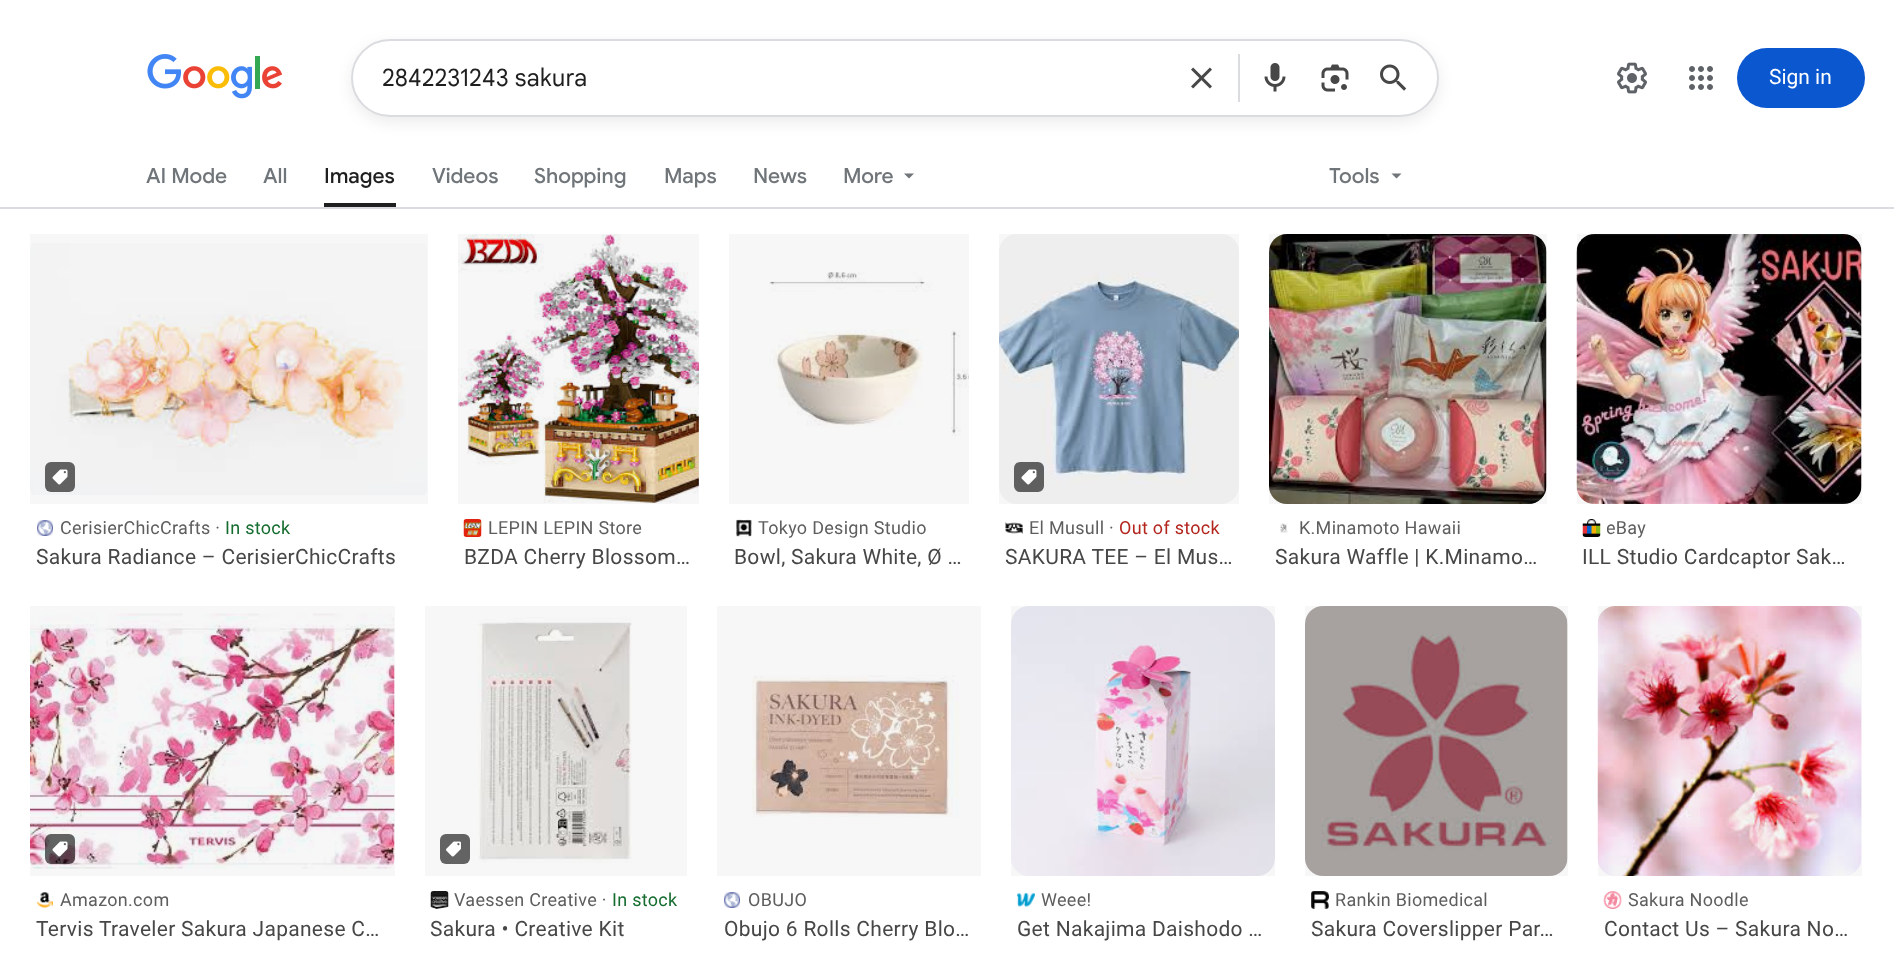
<svg xmlns="http://www.w3.org/2000/svg" width="1894" height="954" viewBox="0 0 1894 954">
  <defs>
    <filter id="blur1" x="-50%" y="-200%" width="200%" height="500%"><feGaussianBlur stdDeviation="7.5"/></filter>
    <clipPath id="clip1"><rect x="1607" y="516" width="39" height="24"/></clipPath>
  </defs>
  <rect width="100%" height="100%" fill="#ffffff"/>
  <image x="147" y="54" width="136" height="45" href="img1.png"/>
  <rect x="351" y="44" width="1088" height="78" rx="39" fill="#1f1f1f" fill-opacity="0.08" filter="url(#blur1)"/>
  <rect x="352" y="40" width="1086" height="76" rx="38" fill="#ffffff" stroke="#dadce0" stroke-width="2"/>
  <text x="382" y="86" font-family="Google Sans" font-size="24" fill="#1f1f1f">2842231243 sakura</text>
  <image x="1191" y="67" width="21" height="22" href="img2.png"/>
  <rect x="1238" y="54" width="2" height="48" fill="#dadce0"/>
  <image x="1264" y="63" width="22" height="29" href="img3.png"/>
  <image x="1321" y="64" width="28" height="28" href="img4.png"/>
  <image x="1380" y="64" width="27" height="27" href="img5.png"/>
  <image x="1617" y="62" width="30" height="32" href="img6.png"/>
  <image x="1689" y="66" width="24" height="24" href="img7.png"/>
  <rect x="1737" y="48" width="128" height="60" rx="30" fill="#0b57d0"/>
  <text x="1769" y="84" font-family="Roboto" font-size="21" fill="#ffffff">Sign in</text>
  <text x="146" y="183" font-family="Google Sans" font-size="21" font-weight="500" fill="#70757a">AI Mode</text>
  <text x="263" y="183" font-family="Google Sans" font-size="21" font-weight="500" fill="#70757a">All</text>
  <rect x="324" y="203" width="72" height="4" fill="#1f1f1f"/>
  <text x="324" y="183" font-family="Google Sans" font-size="21" font-weight="500" fill="#1f1f1f">Images</text>
  <text x="432" y="183" font-family="Google Sans" font-size="21" font-weight="500" fill="#70757a">Videos</text>
  <text x="534" y="183" font-family="Google Sans" font-size="21" font-weight="500" fill="#70757a">Shopping</text>
  <text x="664" y="183" font-family="Google Sans" font-size="21" font-weight="500" fill="#70757a">Maps</text>
  <text x="753" y="183" font-family="Google Sans" font-size="21" font-weight="500" fill="#70757a">News</text>
  <text x="843" y="183" font-family="Google Sans" font-size="21" font-weight="500" fill="#70757a">More</text>
  <path d="M904 173.5L909 178.5L914 173.5Z" fill="#70757a"/>
  <text x="1329" y="183" font-family="Google Sans" font-size="21" font-weight="500" fill="#70757a">Tools</text>
  <path d="M1391.5 173.5L1396.5 178.5L1401.5 173.5Z" fill="#70757a"/>
  <rect x="0" y="207" width="1894" height="2" fill="#dadce0"/>
  <image x="30" y="243" width="397" height="252" href="img8.png"/>
  <rect x="30" y="234" width="398" height="270" fill="#000000" fill-opacity="0.03"/>
  <rect x="45" y="462" width="30" height="30" rx="6" fill="#616162"/>
  <image x="52" y="469" width="16" height="16" href="img9.png"/>
  <image x="37" y="520" width="16" height="16" href="img10.png"/>
  <text x="60" y="534" font-family="Roboto" font-size="18" letter-spacing="0.3" fill="#5e5e5e">CerisierChicCrafts ·</text>
  <text x="225" y="534" font-family="Roboto" font-size="18" letter-spacing="0.3" fill="#146c2e">In stock</text>
  <text x="36" y="564" font-family="Roboto" font-size="21" letter-spacing="0.3" fill="#474747">Sakura Radiance – CerisierChicCrafts</text>
  <image x="457" y="234" width="242" height="269" href="img11.png"/>
  <rect x="458" y="234" width="241" height="270" fill="#000000" fill-opacity="0.03"/>
  <image x="463" y="519" width="19" height="18" href="img12.png"/>
  <text x="488" y="534" font-family="Roboto" font-size="18" letter-spacing="0.3" fill="#5e5e5e">LEPIN LEPIN Store</text>
  <text x="464" y="564" font-family="Roboto" font-size="21" letter-spacing="0.3" fill="#474747">BZDA Cherry Blossom…</text>
  <image x="769" y="272" width="200" height="164" href="img13.png"/>
  <rect x="729" y="234" width="240" height="270" fill="#000000" fill-opacity="0.03"/>
  <image x="736" y="519" width="16" height="18" href="img14.png"/>
  <text x="758" y="534" font-family="Roboto" font-size="18" letter-spacing="0.3" fill="#5e5e5e">Tokyo Design Studio</text>
  <text x="734" y="564" font-family="Roboto" font-size="21" letter-spacing="0.3" fill="#474747">Bowl, Sakura White, Ø …</text>
  <image x="999" y="234" width="240" height="270" href="img15.png"/>
  <rect x="999" y="234" width="240" height="270" fill="#000000" fill-opacity="0.03"/>
  <rect x="1014" y="462" width="30" height="30" rx="6" fill="#000000" fill-opacity="0.6"/>
  <image x="1021" y="469" width="16" height="16" href="img16.png"/>
  <image x="1005" y="522" width="18" height="12" href="img17.png"/>
  <text x="1029" y="534" font-family="Roboto" font-size="18" letter-spacing="0.3" fill="#5e5e5e">El Musull ·</text>
  <text x="1119" y="534" font-family="Roboto" font-size="18" letter-spacing="0.3" fill="#b3261e">Out of stock</text>
  <text x="1005" y="564" font-family="Roboto" font-size="21" letter-spacing="0.3" fill="#474747">SAKURA TEE – El Mus…</text>
  <image x="1269" y="234" width="278" height="270" href="img18.png"/>
  <rect x="1269" y="234" width="278" height="270" fill="#000000" fill-opacity="0.03"/>
  <image x="1280" y="523" width="8" height="10" href="img19.png"/>
  <text x="1299" y="534" font-family="Roboto" font-size="18" letter-spacing="0.3" fill="#5e5e5e">K.Minamoto Hawaii</text>
  <text x="1275" y="564" font-family="Roboto" font-size="21" letter-spacing="0.3" fill="#474747">Sakura Waffle | K.Minamo…</text>
  <image x="1576" y="234" width="286" height="270" href="img20.png"/>
  <rect x="1577" y="234" width="285" height="270" fill="#000000" fill-opacity="0.03"/>
  <image x="1582" y="519" width="19" height="18" href="img21.png"/>
  <g clip-path="url(#clip1)">
    <text x="1606" y="534" font-family="Roboto" font-size="18" letter-spacing="0.3" fill="#5e5e5e">eBay</text>
  </g>
  <text x="1582" y="564" font-family="Roboto" font-size="21" letter-spacing="0.3" fill="#474747">ILL Studio Cardcaptor Sak…</text>
  <image x="30" y="613" width="365" height="256" href="img22.png"/>
  <rect x="30" y="606" width="365" height="270" fill="#000000" fill-opacity="0.03"/>
  <rect x="45" y="834" width="30" height="30" rx="6" fill="#000000" fill-opacity="0.6"/>
  <image x="52" y="841" width="16" height="16" href="img23.png"/>
  <image x="37" y="892" width="16" height="16" href="img24.png"/>
  <text x="60" y="906" font-family="Roboto" font-size="18" letter-spacing="0.3" fill="#5e5e5e">Amazon.com</text>
  <text x="36" y="936" font-family="Roboto" font-size="21" letter-spacing="0.3" fill="#474747">Tervis Traveler Sakura Japanese C…</text>
  <image x="478" y="617" width="154" height="246" href="img25.png"/>
  <rect x="425" y="606" width="262" height="270" fill="#000000" fill-opacity="0.03"/>
  <rect x="440" y="834" width="30" height="30" rx="6" fill="#636363"/>
  <image x="446" y="841" width="15" height="16" href="img26.png"/>
  <image x="430" y="891" width="19" height="18" href="img27.png"/>
  <text x="454" y="906" font-family="Roboto" font-size="18" letter-spacing="0.3" fill="#5e5e5e">Vaessen Creative ·</text>
  <text x="612" y="906" font-family="Roboto" font-size="18" letter-spacing="0.3" fill="#146c2e">In stock</text>
  <text x="430" y="936" font-family="Roboto" font-size="21" letter-spacing="0.3" fill="#474747">Sakura • Creative Kit</text>
  <image x="752" y="675" width="207" height="142" href="img28.png"/>
  <rect x="717" y="606" width="264" height="270" fill="#000000" fill-opacity="0.03"/>
  <image x="724" y="892" width="16" height="16" href="img29.png"/>
  <text x="748" y="906" font-family="Roboto" font-size="18" letter-spacing="0.3" fill="#5e5e5e">OBUJO</text>
  <text x="724" y="936" font-family="Roboto" font-size="21" letter-spacing="0.3" fill="#474747">Obujo 6 Rolls Cherry Blo…</text>
  <image x="1011" y="606" width="264" height="270" href="img30.png"/>
  <rect x="1011" y="606" width="264" height="270" fill="#000000" fill-opacity="0.03"/>
  <image x="1017" y="893" width="18" height="14" href="img31.png"/>
  <text x="1041" y="906" font-family="Roboto" font-size="18" letter-spacing="0.3" fill="#5e5e5e">Weee!</text>
  <text x="1017" y="936" font-family="Roboto" font-size="21" letter-spacing="0.3" fill="#474747">Get Nakajima Daishodo …</text>
  <image x="1305" y="606" width="263" height="270" href="img32.png"/>
  <rect x="1305" y="606" width="263" height="270" fill="#000000" fill-opacity="0.03"/>
  <image x="1311" y="891" width="18" height="18" href="img33.png"/>
  <text x="1335" y="906" font-family="Roboto" font-size="18" letter-spacing="0.3" fill="#5e5e5e">Rankin Biomedical</text>
  <text x="1311" y="936" font-family="Roboto" font-size="21" letter-spacing="0.3" fill="#474747">Sakura Coverslipper Par…</text>
  <image x="1597" y="606" width="265" height="270" href="img34.png"/>
  <rect x="1598" y="606" width="264" height="270" fill="#000000" fill-opacity="0.03"/>
  <image x="1603" y="891" width="19" height="18" href="img35.png"/>
  <text x="1628" y="906" font-family="Roboto" font-size="18" letter-spacing="0.3" fill="#5e5e5e">Sakura Noodle</text>
  <text x="1604" y="936" font-family="Roboto" font-size="21" letter-spacing="0.3" fill="#474747">Contact Us – Sakura No…</text>
</svg>
